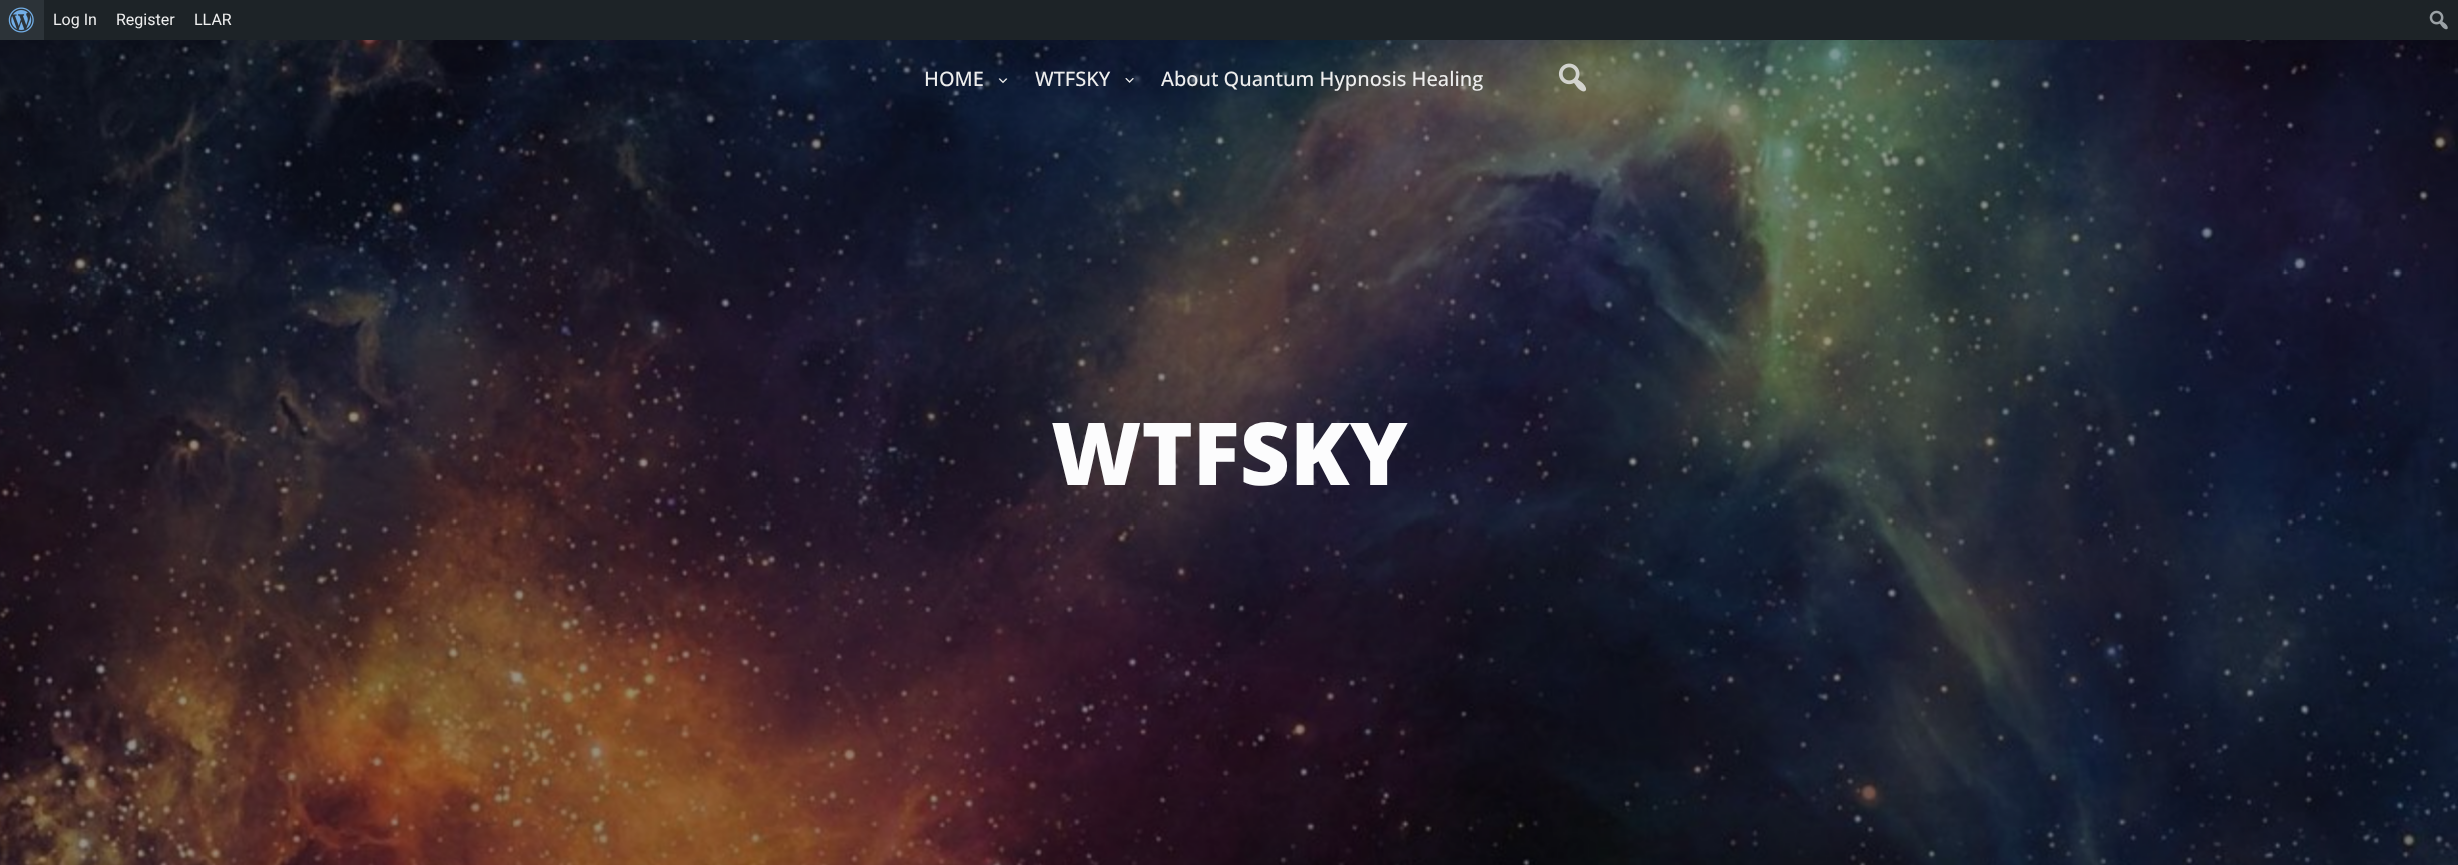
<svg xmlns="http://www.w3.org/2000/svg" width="2458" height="865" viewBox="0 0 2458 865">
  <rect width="100%" height="100%" fill="#ffffff"/>
  <rect x="44" y="0" width="2414" height="40" fill="#1d2327"/>
  <rect x="0" y="0" width="44" height="40" fill="#2c3338"/>
  <image x="8" y="7" width="26" height="26" href="img1.png"/>
  <text x="53" y="25" font-family="Roboto" font-size="16" fill="#eeeeee">Log In</text>
  <text x="116" y="25" font-family="Roboto" font-size="16" fill="#eeeeee">Register</text>
  <text x="194" y="25" font-family="Roboto" font-size="16" fill="#eeeeee">LLAR</text>
  <image x="2429" y="10" width="19" height="20" href="img2.png"/>
  <image x="0" y="40" width="2458" height="825" href="img6.png"/>
  <text x="924" y="86" font-family="Open Sans" font-size="20" font-weight="500" fill="#eeeeee">HOME</text>
  <image x="998" y="78" width="10" height="6" href="img3.png"/>
  <text x="1035" y="86" font-family="Open Sans" font-size="20" font-weight="500" fill="#eeeeee">WTFSKY</text>
  <image x="1125" y="78" width="9" height="5" href="img4.png"/>
  <text x="1161" y="86" font-family="Open Sans" font-size="20" font-weight="500" fill="#eeeeee">About Quantum Hypnosis Healing</text>
  <image x="1558" y="63" width="29" height="29" href="img5.png"/>
  <text x="1051" y="485" font-family="Open Sans" font-size="87" font-weight="800" fill="#fcfcfd">WTFSKY</text>
</svg>
